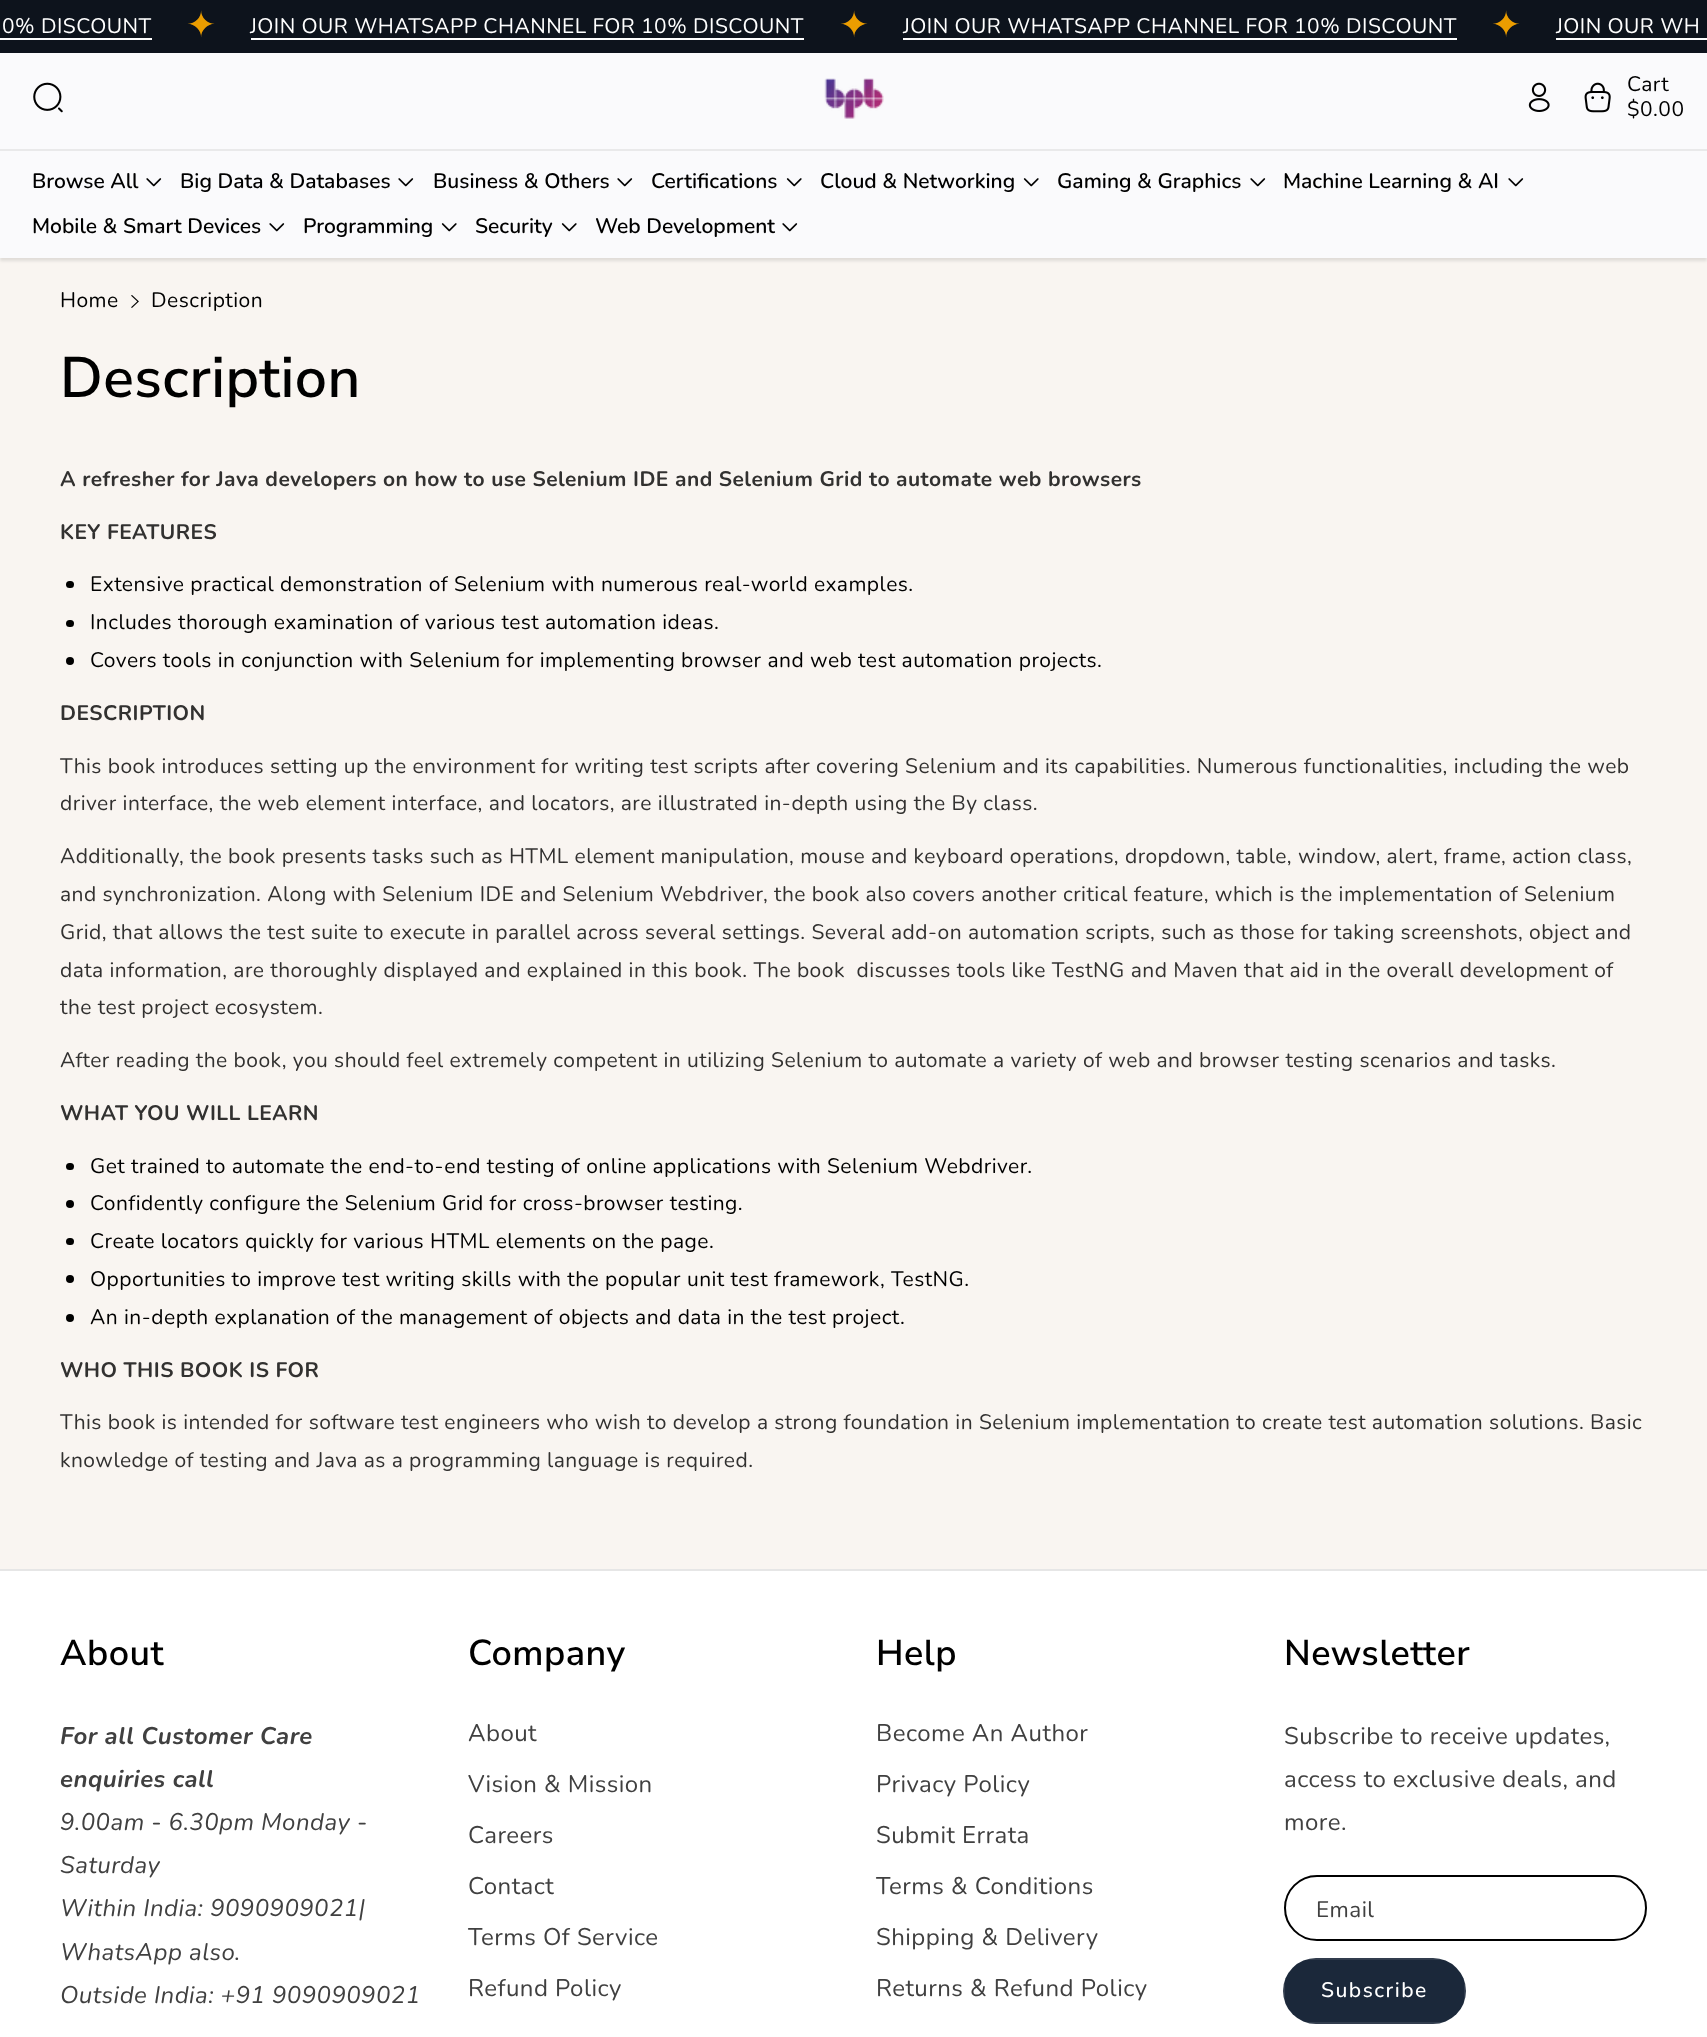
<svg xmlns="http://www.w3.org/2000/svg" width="1707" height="2037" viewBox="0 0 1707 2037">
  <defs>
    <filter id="blur1" x="-50%" y="-200%" width="200%" height="500%"><feGaussianBlur stdDeviation="1.5"/></filter>
  </defs>
  <rect width="100%" height="100%" fill="#f9f5f1"/>
  <rect x="0" y="0" width="1707" height="53" fill="#0d131c"/>
  <text x="2" y="33" font-family="Nunito" font-size="21" letter-spacing="0.45" fill="#ffffff">0% DISCOUNT</text>
  <rect x="0" y="38" width="152" height="2" fill="#ffffff"/>
  <text x="186" y="37" font-family="DejaVu Sans" font-size="36" letter-spacing="0.45" fill="#eb9d00">✦</text>
  <text x="250" y="33" font-family="Nunito" font-size="21" letter-spacing="0.45" fill="#ffffff">JOIN OUR WHATSAPP CHANNEL FOR 10% DISCOUNT</text>
  <rect x="251" y="38" width="553" height="2" fill="#ffffff"/>
  <text x="839" y="37" font-family="DejaVu Sans" font-size="36" letter-spacing="0.45" fill="#eb9d00">✦</text>
  <text x="903" y="33" font-family="Nunito" font-size="21" letter-spacing="0.45" fill="#ffffff">JOIN OUR WHATSAPP CHANNEL FOR 10% DISCOUNT</text>
  <rect x="903" y="38" width="554" height="2" fill="#ffffff"/>
  <text x="1491" y="37" font-family="DejaVu Sans" font-size="36" letter-spacing="0.45" fill="#eb9d00">✦</text>
  <text x="1556" y="33" font-family="Nunito" font-size="21" letter-spacing="0.45" fill="#ffffff">JOIN OUR WH</text>
  <rect x="1556" y="38" width="151" height="2" fill="#ffffff"/>
  <rect x="0" y="56" width="1707" height="205" fill="#000000" fill-opacity="0.1" filter="url(#blur1)"/>
  <rect x="0" y="53" width="1707" height="205" fill="#fafafc"/>
  <image x="33" y="82" width="30" height="31" href="img1.png"/>
  <image x="824" y="78" width="60" height="41" href="img2.png"/>
  <image x="1528" y="82" width="22" height="30" href="img3.png"/>
  <image x="1584" y="82" width="27" height="31" href="img4.png"/>
  <text x="1627" y="91" font-family="Nunito" font-size="21" letter-spacing="0.45" fill="#000000">Cart</text>
  <text x="1627" y="116" font-family="Nunito" font-size="21" letter-spacing="0.45" fill="#000000">$0.00</text>
  <rect x="0" y="149" width="1707" height="2" fill="#e9e9ea"/>
  <text x="32" y="188" font-family="Nunito" font-size="21" font-weight="600" fill="#000000">Browse All</text>
  <image x="146" y="178" width="16" height="9" href="img5.png"/>
  <text x="180" y="188" font-family="Nunito" font-size="21" font-weight="600" fill="#000000">Big Data &amp; Databases</text>
  <image x="398" y="178" width="16" height="9" href="img5.png"/>
  <text x="433" y="188" font-family="Nunito" font-size="21" font-weight="600" fill="#000000">Business &amp; Others</text>
  <image x="617" y="178" width="16" height="9" href="img5.png"/>
  <text x="651" y="188" font-family="Nunito" font-size="21" font-weight="600" fill="#000000">Certifications</text>
  <image x="786" y="178" width="16" height="9" href="img6.png"/>
  <text x="820" y="188" font-family="Nunito" font-size="21" font-weight="600" fill="#000000">Cloud &amp; Networking</text>
  <image x="1023" y="178" width="16" height="9" href="img6.png"/>
  <text x="1057" y="188" font-family="Nunito" font-size="21" font-weight="600" fill="#000000">Gaming &amp; Graphics</text>
  <image x="1250" y="178" width="16" height="9" href="img5.png"/>
  <text x="1283" y="188" font-family="Nunito" font-size="21" font-weight="600" fill="#000000">Machine Learning &amp; AI</text>
  <image x="1508" y="178" width="16" height="9" href="img5.png"/>
  <text x="32" y="233" font-family="Nunito" font-size="21" font-weight="600" fill="#000000">Mobile &amp; Smart Devices</text>
  <image x="269" y="223" width="16" height="9" href="img5.png"/>
  <text x="303" y="233" font-family="Nunito" font-size="21" font-weight="600" fill="#000000">Programming</text>
  <image x="441" y="223" width="16" height="9" href="img6.png"/>
  <text x="475" y="233" font-family="Nunito" font-size="21" font-weight="600" fill="#000000">Security</text>
  <image x="561" y="223" width="16" height="9" href="img6.png"/>
  <text x="595" y="233" font-family="Nunito" font-size="21" font-weight="600" fill="#000000">Web Development</text>
  <image x="782" y="223" width="16" height="9" href="img5.png"/>
  <text x="60" y="307" font-family="Nunito" font-size="21" letter-spacing="0.45" fill="#000000">Home</text>
  <image x="131" y="295" width="8" height="13" href="img7.png"/>
  <text x="151" y="307" font-family="Nunito" font-size="21" letter-spacing="0.45" fill="#000000">Description</text>
  <text x="60" y="397" font-family="Nunito Sans" font-size="57" font-weight="600" letter-spacing="0.45" fill="#000000">Description</text>
  <text x="60" y="486" font-family="Nunito" font-size="21" font-weight="bold" letter-spacing="0.45" fill="#323130">A refresher for Java developers on how to use Selenium IDE and Selenium Grid to automate web browsers</text>
  <text x="60" y="539" font-family="Nunito" font-size="21" font-weight="bold" letter-spacing="0.45" fill="#323130">KEY FEATURES</text>
  <rect x="66" y="581" width="8" height="7" rx="3.5" fill="#000000"/>
  <text x="90" y="591" font-family="Nunito" font-size="21" letter-spacing="0.45" fill="#000000">Extensive practical demonstration of Selenium with numerous real-world examples.</text>
  <rect x="66" y="620" width="8" height="7" rx="3.5" fill="#000000"/>
  <text x="90" y="629" font-family="Nunito" font-size="21" letter-spacing="0.45" fill="#000000">Includes thorough examination of various test automation ideas.</text>
  <circle cx="70" cy="661" r="4" fill="#000000"/>
  <text x="90" y="667" font-family="Nunito" font-size="21" letter-spacing="0.45" fill="#000000">Covers tools in conjunction with Selenium for implementing browser and web test automation projects.</text>
  <text x="60" y="720" font-family="Nunito" font-size="21" font-weight="bold" letter-spacing="0.45" fill="#323130">DESCRIPTION</text>
  <text x="60" y="773" font-family="Nunito" font-size="21" letter-spacing="0.45" fill="#323130">This book introduces setting up the environment for writing test scripts after covering Selenium and its capabilities. Numerous functionalities, including the web</text>
  <text x="60" y="810" font-family="Nunito" font-size="21" letter-spacing="0.45" fill="#323130">driver interface, the web element interface, and locators, are illustrated in-depth using the By class.</text>
  <text x="60" y="863" font-family="Nunito" font-size="21" letter-spacing="0.45" fill="#323130">Additionally, the book presents tasks such as HTML element manipulation, mouse and keyboard operations, dropdown, table, window, alert, frame, action class,</text>
  <text x="60" y="901" font-family="Nunito" font-size="21" letter-spacing="0.45" fill="#323130">and synchronization. Along with Selenium IDE and Selenium Webdriver, the book also covers another critical feature, which is the implementation of Selenium</text>
  <text x="60" y="939" font-family="Nunito" font-size="21" letter-spacing="0.45" fill="#323130">Grid, that allows the test suite to execute in parallel across several settings. Several add-on automation scripts, such as those for taking screenshots, object and</text>
  <text x="60" y="977" font-family="Nunito" font-size="21" letter-spacing="0.45" fill="#323130" xml:space="preserve">data information, are thoroughly displayed and explained in this book. The book  discusses tools like TestNG and Maven that aid in the overall development of</text>
  <text x="60" y="1014" font-family="Nunito" font-size="21" letter-spacing="0.45" fill="#323130">the test project ecosystem.</text>
  <text x="60" y="1067" font-family="Nunito" font-size="21" letter-spacing="0.45" fill="#323130">After reading the book, you should feel extremely competent in utilizing Selenium to automate a variety of web and browser testing scenarios and tasks.</text>
  <text x="60" y="1120" font-family="Nunito" font-size="21" font-weight="bold" letter-spacing="0.45" fill="#323130">WHAT YOU WILL LEARN</text>
  <rect x="66" y="1163" width="8" height="7" rx="3.5" fill="#000000"/>
  <text x="90" y="1173" font-family="Nunito" font-size="21" letter-spacing="0.45" fill="#000000">Get trained to automate the end-to-end testing of online applications with Selenium Webdriver.</text>
  <circle cx="70" cy="1204" r="4" fill="#000000"/>
  <text x="90" y="1210" font-family="Nunito" font-size="21" letter-spacing="0.45" fill="#000000">Confidently configure the Selenium Grid for cross-browser testing.</text>
  <rect x="66" y="1238" width="8" height="7" rx="3.5" fill="#000000"/>
  <text x="90" y="1248" font-family="Nunito" font-size="21" letter-spacing="0.45" fill="#000000">Create locators quickly for various HTML elements on the page.</text>
  <circle cx="70" cy="1279" r="4" fill="#000000"/>
  <text x="90" y="1286" font-family="Nunito" font-size="21" letter-spacing="0.45" fill="#000000">Opportunities to improve test writing skills with the popular unit test framework, TestNG.</text>
  <circle cx="70" cy="1318" r="4" fill="#000000"/>
  <text x="90" y="1324" font-family="Nunito" font-size="21" letter-spacing="0.45" fill="#000000">An in-depth explanation of the management of objects and data in the test project.</text>
  <text x="60" y="1377" font-family="Nunito" font-size="21" font-weight="bold" letter-spacing="0.45" fill="#323130">WHO THIS BOOK IS FOR</text>
  <text x="60" y="1429" font-family="Nunito" font-size="21" letter-spacing="0.45" fill="#323130">This book is intended for software test engineers who wish to develop a strong foundation in Selenium implementation to create test automation solutions. Basic</text>
  <text x="60" y="1467" font-family="Nunito" font-size="21" letter-spacing="0.45" fill="#323130">knowledge of testing and Java as a programming language is required.</text>
  <rect x="0" y="1571" width="1707" height="466" fill="#ffffff"/>
  <rect x="0" y="1569" width="1707" height="2" fill="#e6e6e6"/>
  <text x="60" y="1665" font-family="Nunito Sans" font-size="36" font-weight="600" letter-spacing="0.45" fill="#000000">About</text>
  <text x="60" y="1744" font-family="Nunito" font-size="24" font-weight="bold" font-style="italic" letter-spacing="0.45" fill="#404040">For all Customer Care</text>
  <text x="60" y="1787" font-family="Nunito" font-size="24" font-weight="bold" font-style="italic" letter-spacing="0.45" fill="#404040">enquiries call</text>
  <text x="60" y="1830" font-family="Nunito" font-size="24" font-style="italic" letter-spacing="0.45" fill="#404040">9.00am - 6.30pm Monday -</text>
  <text x="60" y="1873" font-family="Nunito" font-size="24" font-style="italic" letter-spacing="0.45" fill="#404040">Saturday</text>
  <text x="60" y="1916" font-family="Nunito" font-size="24" font-style="italic" letter-spacing="0.45" fill="#404040">Within India: 9090909021|</text>
  <text x="60" y="1960" font-family="Nunito" font-size="24" font-style="italic" letter-spacing="0.45" fill="#404040">WhatsApp also.</text>
  <text x="60" y="2003" font-family="Nunito" font-size="24" font-style="italic" letter-spacing="0.45" fill="#404040">Outside India: +91 9090909021</text>
  <text x="468" y="1665" font-family="Nunito Sans" font-size="36" font-weight="600" letter-spacing="0.45" fill="#000000">Company</text>
  <text x="468" y="1741" font-family="Nunito" font-size="24" letter-spacing="0.45" fill="#404040">About</text>
  <text x="468" y="1792" font-family="Nunito" font-size="24" letter-spacing="0.45" fill="#404040">Vision &amp; Mission</text>
  <text x="468" y="1843" font-family="Nunito" font-size="24" letter-spacing="0.45" fill="#404040">Careers</text>
  <text x="468" y="1894" font-family="Nunito" font-size="24" letter-spacing="0.45" fill="#404040">Contact</text>
  <text x="468" y="1945" font-family="Nunito" font-size="24" letter-spacing="0.45" fill="#404040">Terms Of Service</text>
  <text x="468" y="1996" font-family="Nunito" font-size="24" letter-spacing="0.45" fill="#404040">Refund Policy</text>
  <text x="876" y="1665" font-family="Nunito Sans" font-size="36" font-weight="600" letter-spacing="0.45" fill="#000000">Help</text>
  <text x="876" y="1741" font-family="Nunito" font-size="24" letter-spacing="0.45" fill="#404040">Become An Author</text>
  <text x="876" y="1792" font-family="Nunito" font-size="24" letter-spacing="0.45" fill="#404040">Privacy Policy</text>
  <text x="876" y="1843" font-family="Nunito" font-size="24" letter-spacing="0.45" fill="#404040">Submit Errata</text>
  <text x="876" y="1894" font-family="Nunito" font-size="24" letter-spacing="0.45" fill="#404040">Terms &amp; Conditions</text>
  <text x="876" y="1945" font-family="Nunito" font-size="24" letter-spacing="0.45" fill="#404040">Shipping &amp; Delivery</text>
  <text x="876" y="1996" font-family="Nunito" font-size="24" letter-spacing="0.45" fill="#404040">Returns &amp; Refund Policy</text>
  <text x="1284" y="1665" font-family="Nunito Sans" font-size="36" font-weight="600" letter-spacing="0.45" fill="#000000">Newsletter</text>
  <text x="1284" y="1744" font-family="Nunito" font-size="24" letter-spacing="0.45" fill="#404040">Subscribe to receive updates,</text>
  <text x="1284" y="1787" font-family="Nunito" font-size="24" letter-spacing="0.45" fill="#404040">access to exclusive deals, and</text>
  <text x="1284" y="1830" font-family="Nunito" font-size="24" letter-spacing="0.45" fill="#404040">more.</text>
  <rect x="1285" y="1876" width="361" height="64" rx="32" fill="none" stroke="#000000" stroke-width="2"/>
  <text x="1316" y="1917" font-family="Nunito" font-size="22.5" letter-spacing="0.45" fill="#404040">Email</text>
  <rect x="1283" y="1958" width="183" height="66" rx="33" fill="#1b283a"/>
  <rect x="1284" y="1959" width="181" height="64" fill="none" stroke="#ffffff" stroke-opacity="0.05" stroke-width="2"/>
  <rect x="1284" y="1959" width="181" height="64" fill="none" stroke="#ffffff" stroke-opacity="0.05" stroke-width="2"/>
  <text x="1321" y="1997" font-family="Nunito" font-size="21" font-weight="500" letter-spacing="1.5" fill="#ffffff">Subscribe</text>
</svg>
